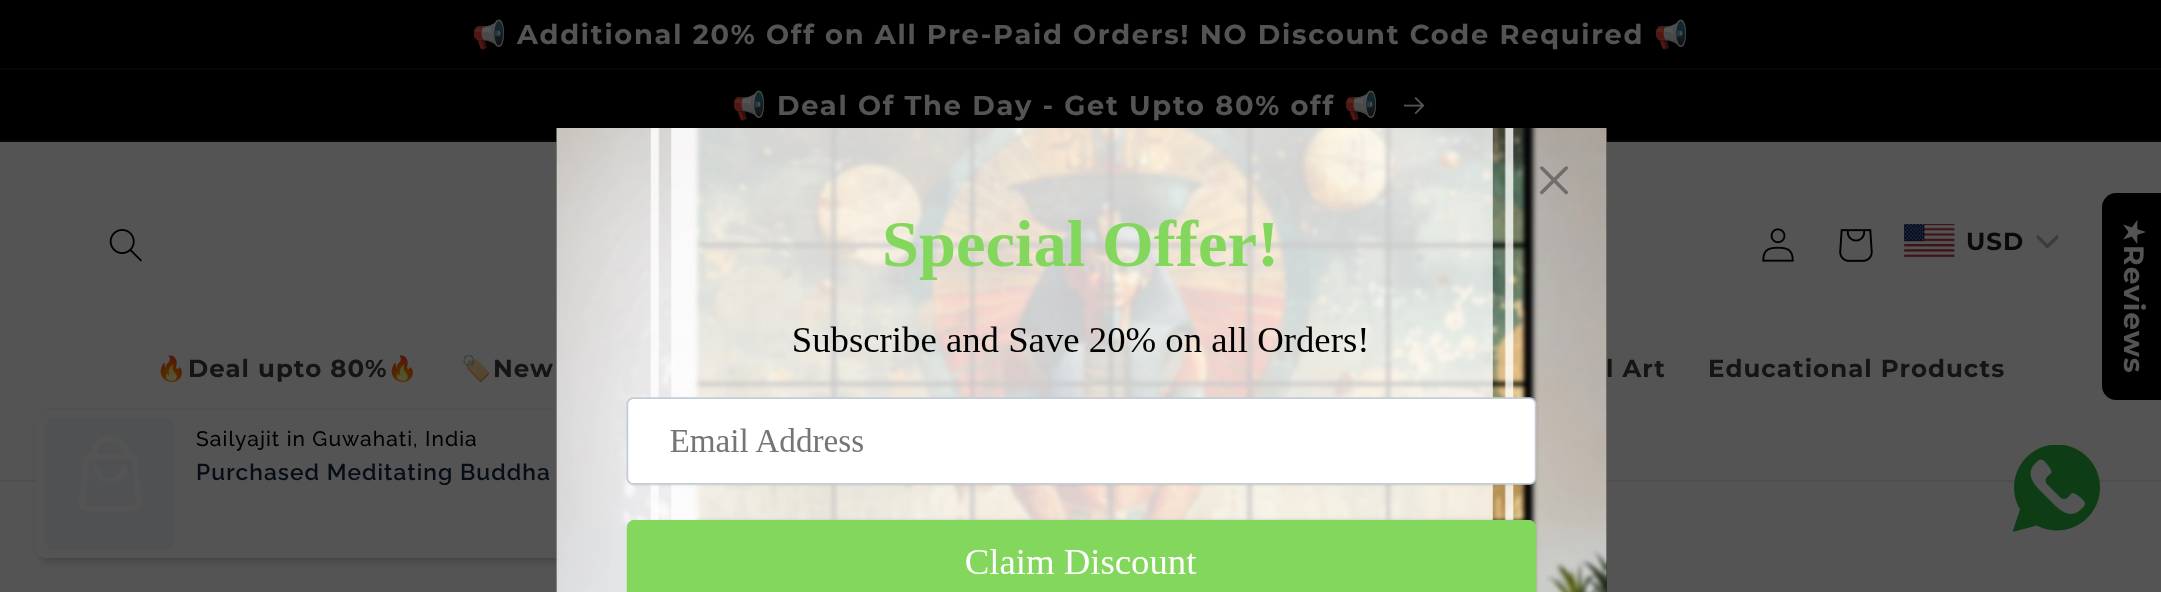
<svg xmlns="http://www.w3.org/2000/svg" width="2161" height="592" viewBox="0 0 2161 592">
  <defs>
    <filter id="blur1" x="-50%" y="-200%" width="200%" height="500%"><feGaussianBlur stdDeviation="4.5"/></filter>
  </defs>
  <rect width="100%" height="100%" fill="#ffffff"/>
  <rect x="0" y="0" width="2161" height="68" fill="#000000"/>
  <rect x="0" y="68" width="2161" height="2" fill="#141414"/>
  <text x="472" y="44" font-family="Noto Color Emoji" font-size="27.3" font-weight="bold" letter-spacing="1.75" fill="#ffffff">📢</text>
  <text x="517" y="44" font-family="Montserrat" font-size="27.3" font-weight="bold" letter-spacing="1.75" fill="#ffffff">Additional 20% Off on All Pre-Paid Orders! NO Discount Code Required</text>
  <text x="1654" y="44" font-family="Noto Color Emoji" font-size="27.3" font-weight="bold" letter-spacing="1.75" fill="#ffffff">📢</text>
  <rect x="0" y="70" width="2161" height="70" fill="#000000"/>
  <rect x="0" y="140" width="2161" height="2" fill="#141414"/>
  <text x="732" y="115" font-family="Noto Color Emoji" font-size="27.3" font-weight="bold" letter-spacing="1.75" fill="#ffffff">📢</text>
  <text x="777" y="115" font-family="Montserrat" font-size="27.3" font-weight="bold" letter-spacing="1.75" fill="#ffffff">Deal Of The Day - Get Upto 80% off</text>
  <text x="1344" y="115" font-family="Noto Color Emoji" font-size="27.3" font-weight="bold" letter-spacing="1.75" fill="#ffffff">📢</text>
  <image x="1404" y="97" width="21" height="17" href="img2.png"/>
  <rect x="0" y="480" width="2161" height="2" fill="#ebebeb"/>
  <image x="109" y="229" width="33" height="33" href="img3.png"/>
  <image x="1762" y="228" width="32" height="34" href="img4.png"/>
  <image x="1839" y="229" width="34" height="33" href="img5.png"/>
  <image x="1904" y="224" width="51" height="34" href="img6.png"/>
  <text x="1966" y="250" font-family="Montserrat" font-size="24.5" font-weight="bold" letter-spacing="1.05" fill="#1e1e1e">USD</text>
  <path d="M2038 237L2047.5 246.5L2057 237" fill="none" stroke="#b7b7b7" stroke-width="3.2" stroke-linecap="round" stroke-linejoin="round"/>
  <text x="156" y="377" font-family="Noto Color Emoji" font-size="24.5" font-weight="bold" letter-spacing="1.05" fill="#404040">🔥</text>
  <text x="188" y="377" font-family="Montserrat" font-size="24.5" font-weight="bold" letter-spacing="1.05" fill="#404040">Deal upto 80%</text>
  <text x="387" y="377" font-family="Noto Color Emoji" font-size="24.5" font-weight="bold" letter-spacing="1.05" fill="#404040">🔥</text>
  <text x="461" y="377" font-family="Noto Color Emoji" font-size="24.5" font-weight="bold" letter-spacing="1.05" fill="#404040">🏷️</text>
  <text x="493" y="377" word-spacing="-1" font-family="Montserrat" font-size="24.5" font-weight="bold" letter-spacing="1.05" fill="#404040">New</text>
  <text x="1606" y="377" font-family="Montserrat" font-size="24.5" font-weight="bold" letter-spacing="1.05" fill="#404040">l Art</text>
  <text x="1708" y="377" font-family="Montserrat" font-size="24.5" font-weight="bold" letter-spacing="1.05" fill="#404040">Educational Products</text>
  <path d="M2161 193V400H2116C2109 400 2102 394 2102 386V207C2102 199 2109 193 2116 193Z" fill="#000000"/>
  <text x="2124" y="219" transform="rotate(90 2124 219)" font-family="DejaVu Sans" font-size="28" font-weight="bold" letter-spacing="1.05" fill="#ffffff">★</text>
  <text x="2124" y="245" transform="rotate(90 2124 245)" font-family="Montserrat" font-size="28" font-weight="bold" letter-spacing="1.05" fill="#ffffff">Reviews</text>
  <rect x="39" y="413" width="586" height="149" rx="11" fill="#000000" fill-opacity="0.2" filter="url(#blur1)"/>
  <rect x="35" y="410" width="586" height="148" rx="11" fill="#ffffff"/>
  <rect x="44" y="418" width="131" height="132" rx="11" fill="#f2f5fc"/>
  <image x="79" y="436" width="63" height="76" href="img7.png"/>
  <text x="196" y="446" font-family="Raleway" font-size="21" font-weight="500" letter-spacing="1.05" fill="#000000">Sailyajit in Guwahati, India</text>
  <text x="196" y="480" font-family="Raleway" font-size="22.75" font-weight="600" letter-spacing="1.05" fill="#142a47">Purchased Meditating Buddha</text>
  <image x="2013" y="445" width="87" height="87" href="img8.png"/>
  <image x="0" y="19" width="2161" height="573" href="img1.png"/>
</svg>
